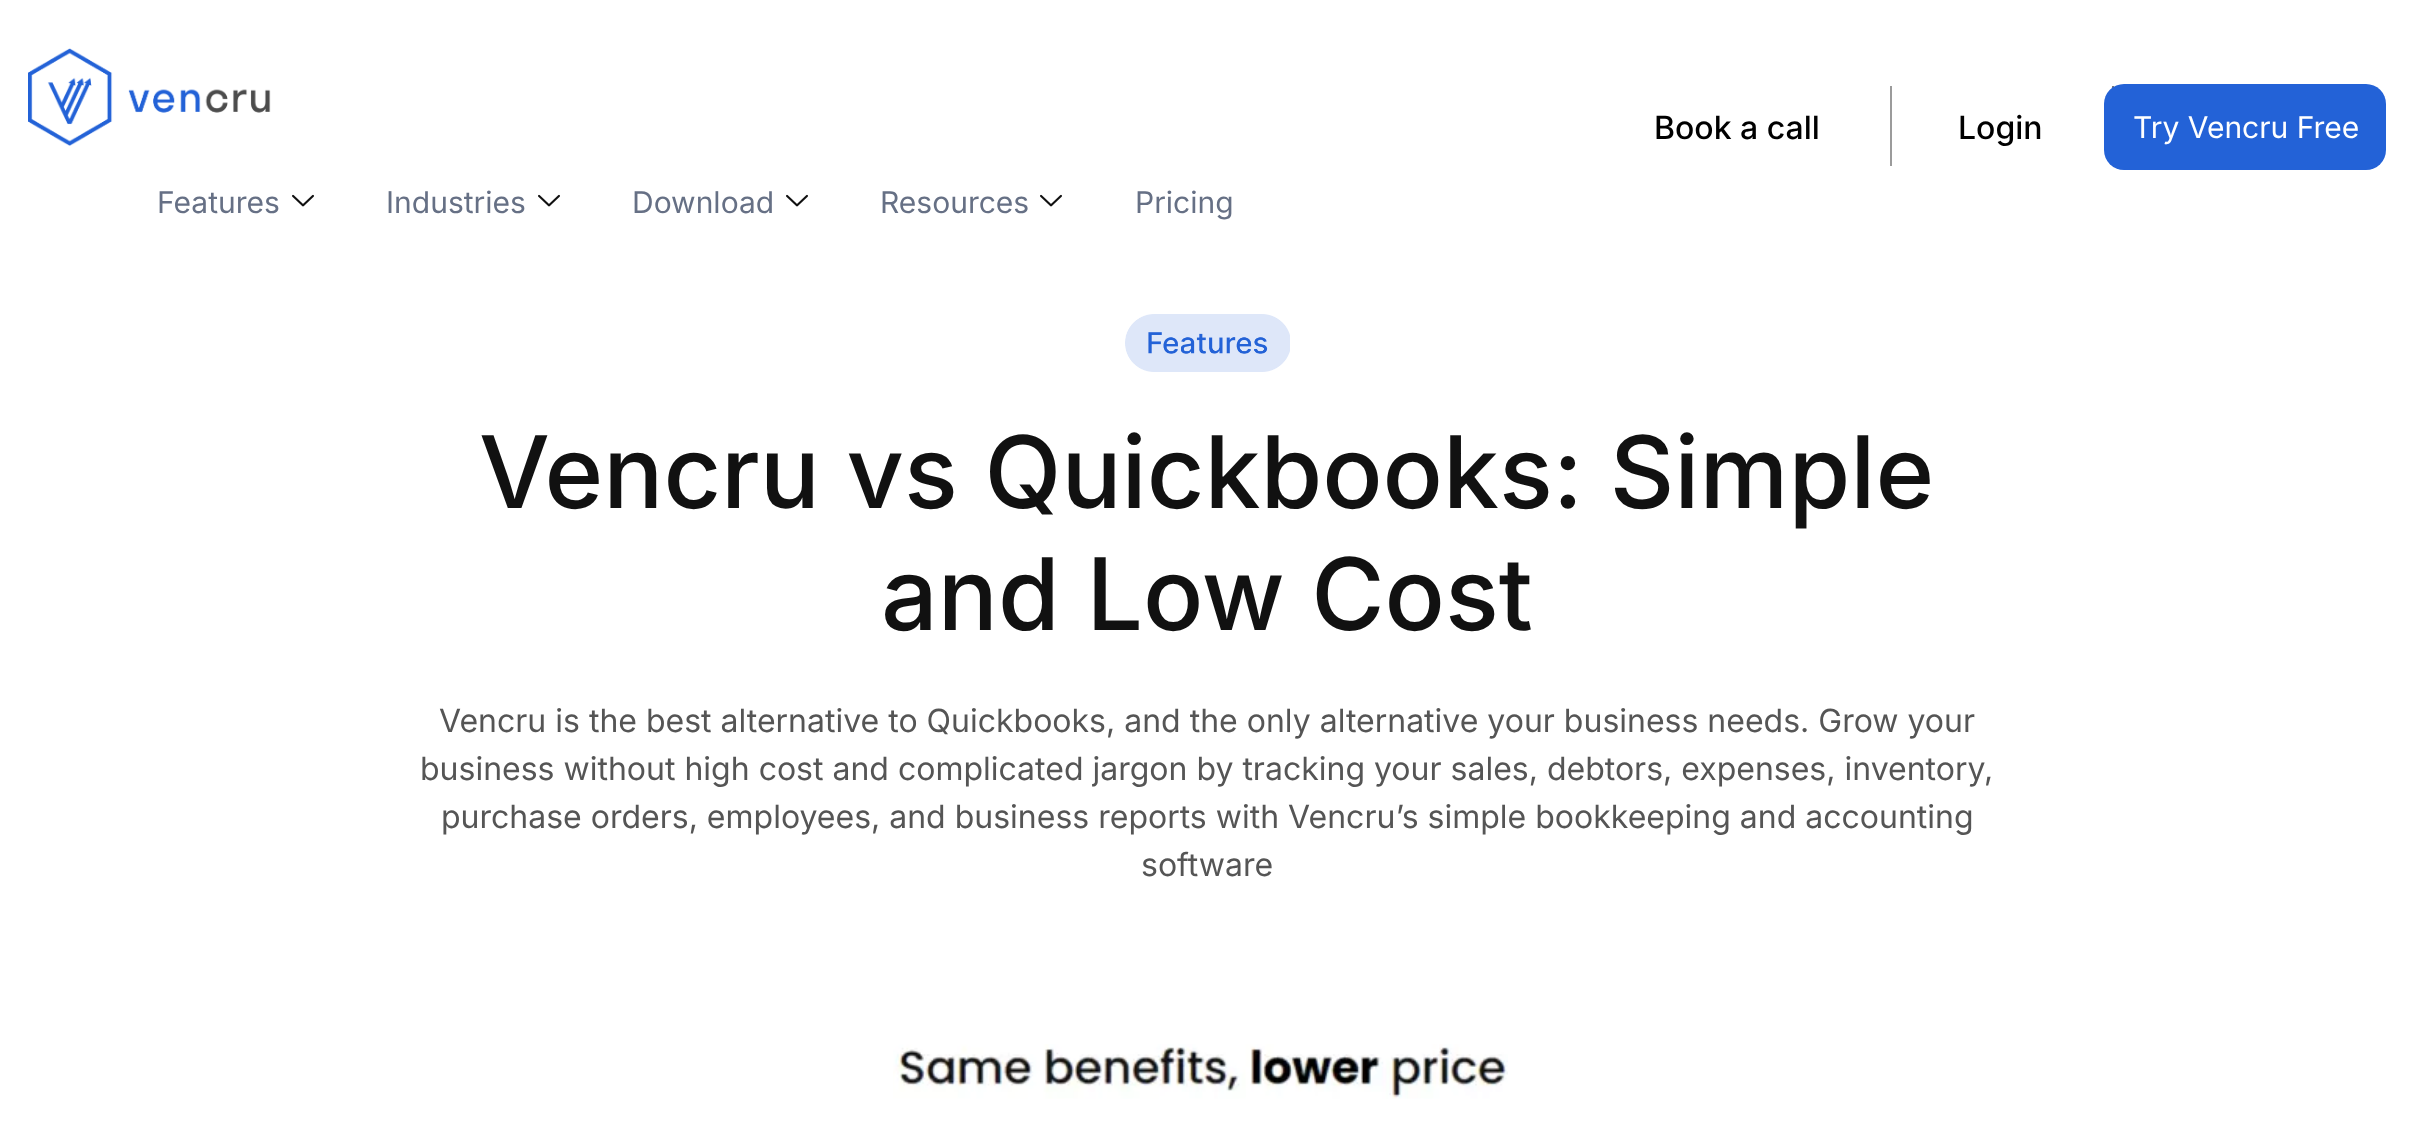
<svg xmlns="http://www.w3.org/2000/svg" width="2413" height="1124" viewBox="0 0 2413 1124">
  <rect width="100%" height="100%" fill="#ffffff"/>
  <rect x="1890" y="86" width="2" height="80" fill="#9b9b9b"/>
  <text x="1654" y="139" font-family="Inter" font-size="32" font-weight="500" fill="#000000">Book a call</text>
  <rect x="2112" y="86" width="2" height="2" fill="#787878"/>
  <text x="1958" y="139" font-family="Inter" font-size="32" font-weight="500" fill="#000000">Login</text>
  <rect x="2104" y="84" width="282" height="86" rx="20" fill="#2362d7"/>
  <text x="2133" y="138" font-family="Inter" font-size="30" fill="#ffffff">Try Vencru Free</text>
  <image x="28" y="48" width="243" height="98" href="img1.png"/>
  <text x="157" y="213" font-family="Inter" font-size="30" fill="#667085">Features</text>
  <image x="292" y="194" width="22" height="13" href="img2.png"/>
  <text x="386" y="213" font-family="Inter" font-size="30" fill="#667085">Industries</text>
  <image x="538" y="194" width="22" height="13" href="img2.png"/>
  <text x="632" y="213" font-family="Inter" font-size="30" fill="#667085">Download</text>
  <image x="786" y="194" width="22" height="13" href="img2.png"/>
  <text x="880" y="213" font-family="Inter" font-size="30" fill="#667085">Resources</text>
  <image x="1040" y="194" width="22" height="13" href="img2.png"/>
  <text x="1135" y="213" font-family="Inter" font-size="30" fill="#667085">Pricing</text>
  <image x="1125" y="314" width="165" height="58" href="img3.png"/>
  <text x="479" y="508" font-family="Inter" font-size="100" font-weight="500" fill="#111111">Vencru vs Quickbooks: Simple</text>
  <text x="881" y="630" font-family="Inter" font-size="100" font-weight="500" fill="#111111">and Low Cost</text>
  <text x="439" y="732" font-family="Inter" font-size="32" fill="#555555">Vencru is the best alternative to Quickbooks, and the only alternative your business needs. Grow your</text>
  <text x="420" y="780" font-family="Inter" font-size="32" fill="#555555">business without high cost and complicated jargon by tracking your sales, debtors, expenses, inventory,</text>
  <text x="441" y="828" font-family="Inter" font-size="32" fill="#555555">purchase orders, employees, and business reports with Vencru’s simple bookkeeping and accounting</text>
  <text x="1141" y="876" font-family="Inter" font-size="32" fill="#555555">software</text>
  <image x="893" y="1044" width="615" height="55" href="img4.png"/>
</svg>
